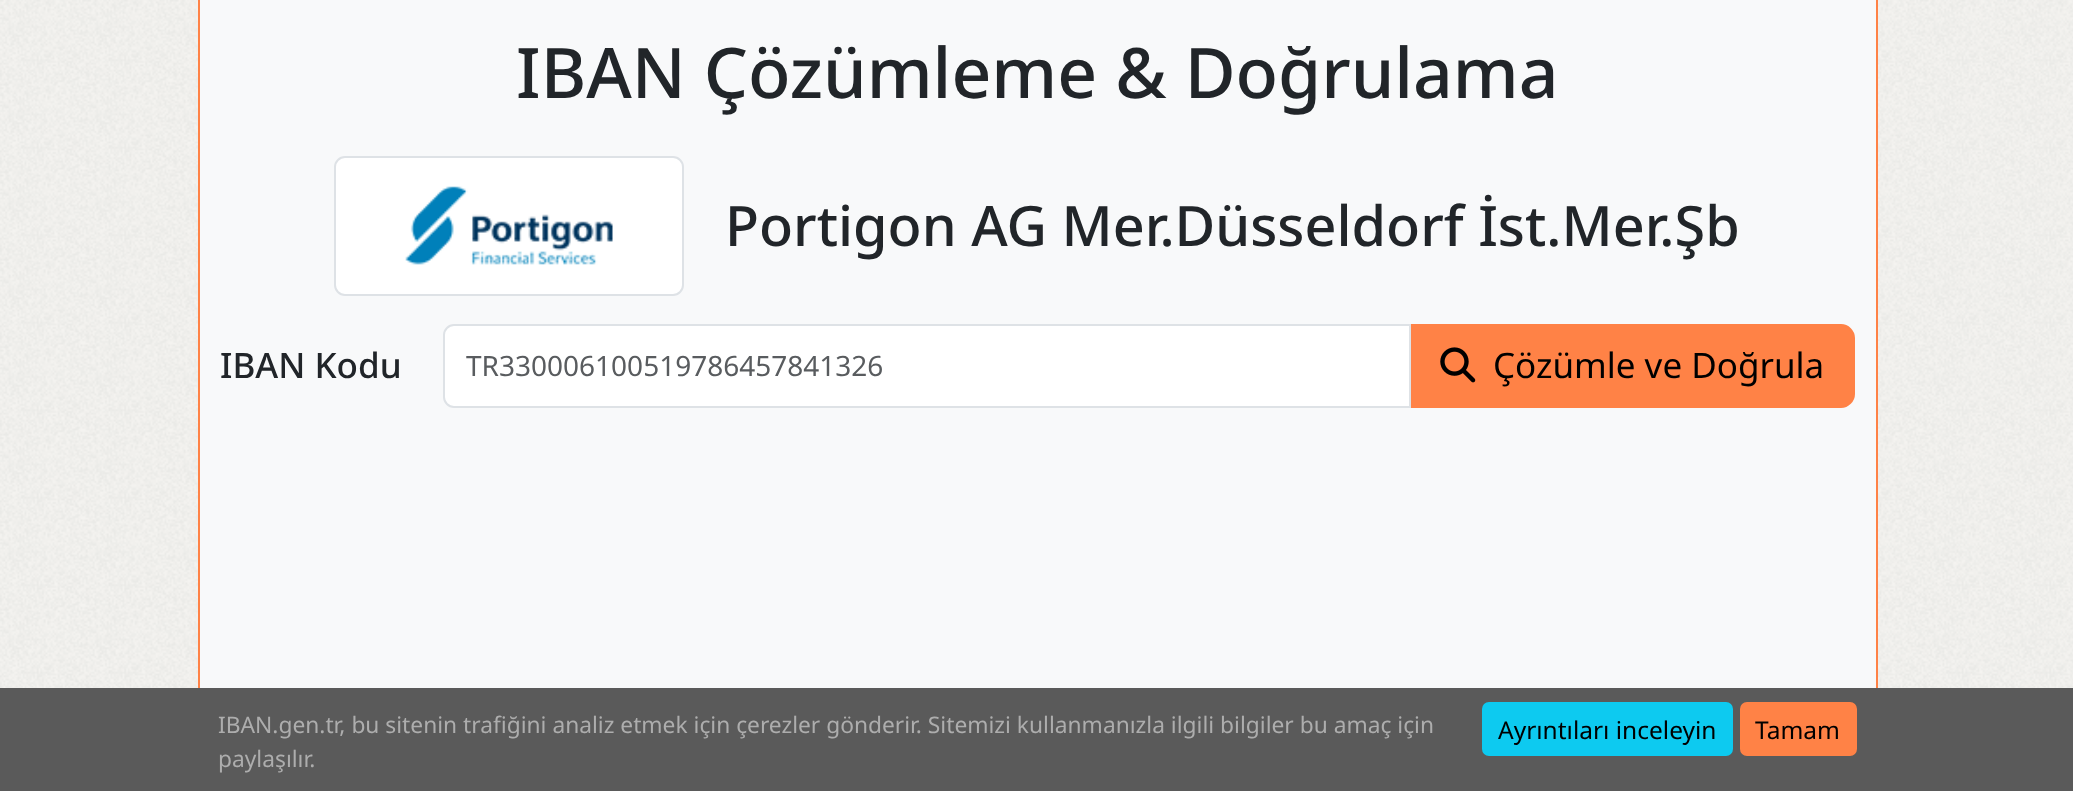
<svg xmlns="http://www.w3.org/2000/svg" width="2073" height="791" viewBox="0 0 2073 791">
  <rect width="100%" height="100%" fill="#ffffff"/>
  <image x="0" y="0" width="2073" height="688" href="img1.png"/>
  <rect x="200" y="0" width="1676" height="688" fill="#f8f9fa"/>
  <rect x="1876" y="0" width="2" height="688" fill="#ff8246"/>
  <rect x="198" y="0" width="2" height="688" fill="#ff8246"/>
  <text x="516" y="98" font-family="Noto Sans" font-size="69.6" font-weight="500" fill="#212529">IBAN Çözümleme &amp; Doğrulama</text>
  <rect x="335" y="157" width="348" height="138" rx="10" fill="#ffffff" stroke="#dee2e6" stroke-width="2"/>
  <image x="405" y="186" width="208" height="79" href="img2.png"/>
  <text x="725" y="246" font-family="Noto Sans" font-size="55.75" font-weight="500" fill="#212529">Portigon AG Mer.Düsseldorf İst.Mer.Şb</text>
  <text x="220" y="378" font-family="Noto Sans" font-size="35" font-weight="500" fill="#212529">IBAN Kodu</text>
  <path d="M454 325H1410V407H454C448.5 407 444 402.5 444 397V335C444 329.5 448.5 325 454 325Z" fill="#ffffff" stroke="#dee2e6" stroke-width="2"/>
  <text x="466" y="376" font-family="Noto Sans" font-size="28" fill="#595c5f">TR330006100519786457841326</text>
  <path d="M1412 325H1841C1848 325 1854 331 1854 338V394C1854 401 1848 407 1841 407H1412Z" fill="#ff8246" stroke="#ff8246" stroke-width="2"/>
  <image x="1440" y="347" width="36" height="36" href="img3.png"/>
  <text x="1493" y="378" font-family="Noto Sans" font-size="35" fill="#000000">Çözümle ve Doğrula</text>
  <rect x="0" y="688" width="2073" height="103" fill="#5a5a5a"/>
  <text x="218" y="733" font-family="Noto Sans" font-size="22.75" fill="#adadad">IBAN.gen.tr, bu sitenin trafiğini analiz etmek için çerezler gönderir. Sitemizi kullanmanızla ilgili bilgiler bu amaç için</text>
  <text x="218" y="767" font-family="Noto Sans" font-size="22.75" fill="#adadad">paylaşılır.</text>
  <rect x="1483" y="703" width="249" height="52" rx="6" fill="#0dcaf0" stroke="#0dcaf0" stroke-width="2"/>
  <text x="1498" y="739" font-family="Noto Sans" font-size="24.5" fill="#000000">Ayrıntıları inceleyin</text>
  <rect x="1741" y="703" width="115" height="52" rx="6" fill="#ff8246" stroke="#ff8246" stroke-width="2"/>
  <text x="1755" y="739" font-family="Noto Sans" font-size="24.5" fill="#000000">Tamam</text>
</svg>
